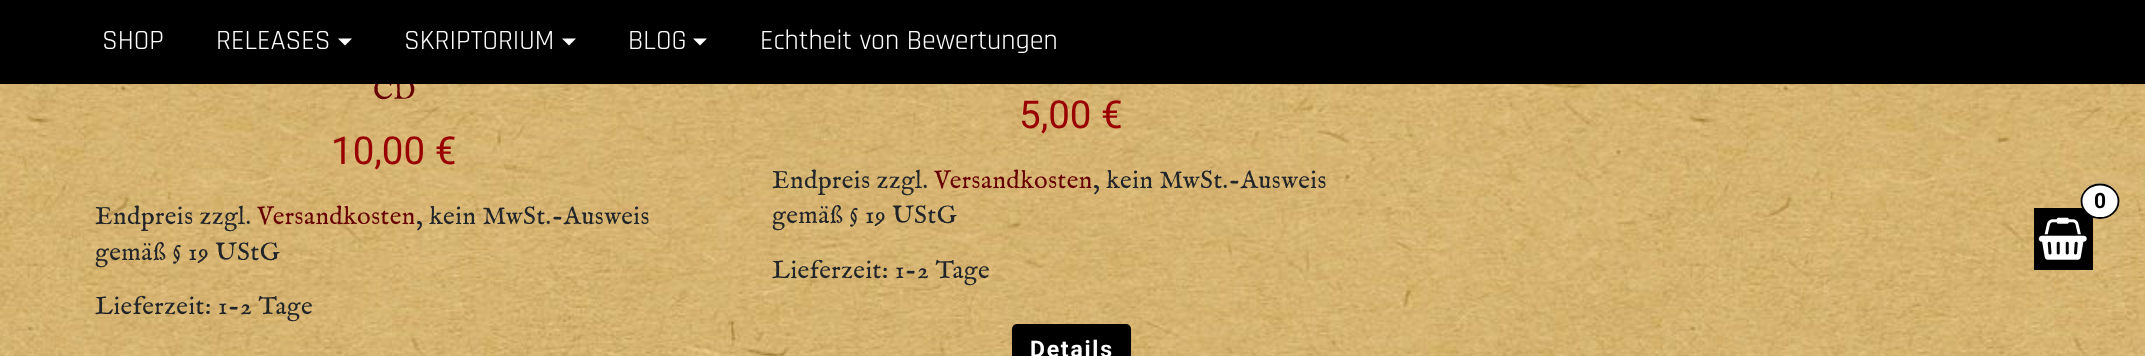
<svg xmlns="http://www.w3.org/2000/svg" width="2145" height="356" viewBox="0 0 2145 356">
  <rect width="100%" height="100%" fill="#ffffff"/>
  <image x="0" y="84" width="2145" height="272" href="img1.png"/>
  <text x="373" y="99" font-family="IM FELL English SC" font-size="28" fill="#660000">CD</text>
  <rect x="0" y="0" width="2145" height="84" fill="#000000"/>
  <text x="102" y="49" font-family="Rajdhani" font-size="28" fill="#ffffff">SHOP</text>
  <text x="216" y="49" font-family="Rajdhani" font-size="28" fill="#ffffff">RELEASES</text>
  <path d="M338 38.5H352L345 45.5Z" fill="#ffffff"/>
  <text x="404" y="49" font-family="Rajdhani" font-size="28" fill="#ffffff">SKRIPTORIUM</text>
  <path d="M562 38.5H576L569 45.5Z" fill="#ffffff"/>
  <text x="628" y="49" font-family="Rajdhani" font-size="28" fill="#ffffff">BLOG</text>
  <path d="M693 38.5H707L700 45.5Z" fill="#ffffff"/>
  <text x="760" y="49" font-family="Rajdhani" font-size="28" fill="#ffffff">Echtheit von Bewertungen</text>
  <text x="331" y="164" font-family="Roboto" font-size="38.5" fill="#990000">10,00 €</text>
  <text x="95" y="224" font-family="IM FELL English" font-size="25.25" letter-spacing="0.5" fill="#212529">Endpreis zzgl.</text>
  <text x="257" y="224" font-family="IM FELL English" font-size="25.25" letter-spacing="0.5" fill="#660000">Versandkosten</text>
  <text x="416" y="224" font-family="IM FELL English" font-size="25.25" letter-spacing="0.5" fill="#212529">, kein MwSt.-Ausweis</text>
  <text x="95" y="260" font-family="IM FELL English" font-size="25.25" letter-spacing="0.5" fill="#212529">gemäß § 19 UStG</text>
  <text x="95" y="314" font-family="IM FELL English" font-size="25.25" letter-spacing="0.5" fill="#212529">Lieferzeit: 1-2 Tage</text>
  <text x="1019" y="128" font-family="Roboto" font-size="38.5" fill="#990000">5,00 €</text>
  <text x="772" y="188" font-family="IM FELL English" font-size="25.25" letter-spacing="0.5" fill="#212529">Endpreis zzgl.</text>
  <text x="934" y="188" font-family="IM FELL English" font-size="25.25" letter-spacing="0.5" fill="#660000">Versandkosten</text>
  <text x="1093" y="188" font-family="IM FELL English" font-size="25.25" letter-spacing="0.5" fill="#212529">, kein MwSt.-Ausweis</text>
  <text x="772" y="223" font-family="IM FELL English" font-size="25.25" letter-spacing="0.5" fill="#212529">gemäß § 19 UStG</text>
  <text x="772" y="278" font-family="IM FELL English" font-size="25.25" letter-spacing="0.5" fill="#212529">Lieferzeit: 1-2 Tage</text>
  <rect x="1012" y="324" width="119" height="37" rx="5" fill="#000000"/>
  <text x="1030" y="357" font-family="Roboto" font-size="23" font-weight="bold" letter-spacing="1.75" fill="#ffffff">Details</text>
  <rect x="2034" y="208" width="59" height="62" fill="#000000"/>
  <image x="2038" y="217" width="49" height="43" href="img2.png"/>
  <ellipse cx="2100" cy="201" rx="19" ry="17.5" fill="#ffffff"/>
  <path d="M2100 184.5C2110 184.5 2118.5 192 2118.5 201C2118.5 210.5 2110 218 2100 218C2090 218 2081.5 210.5 2081.5 201C2081.5 192 2090 184.5 2100 184.5Z" fill="none" stroke="#000000" stroke-width="1.8"/>
  <text x="2094" y="208" font-family="Roboto" font-size="21" font-weight="bold" fill="#000000">0</text>
</svg>
